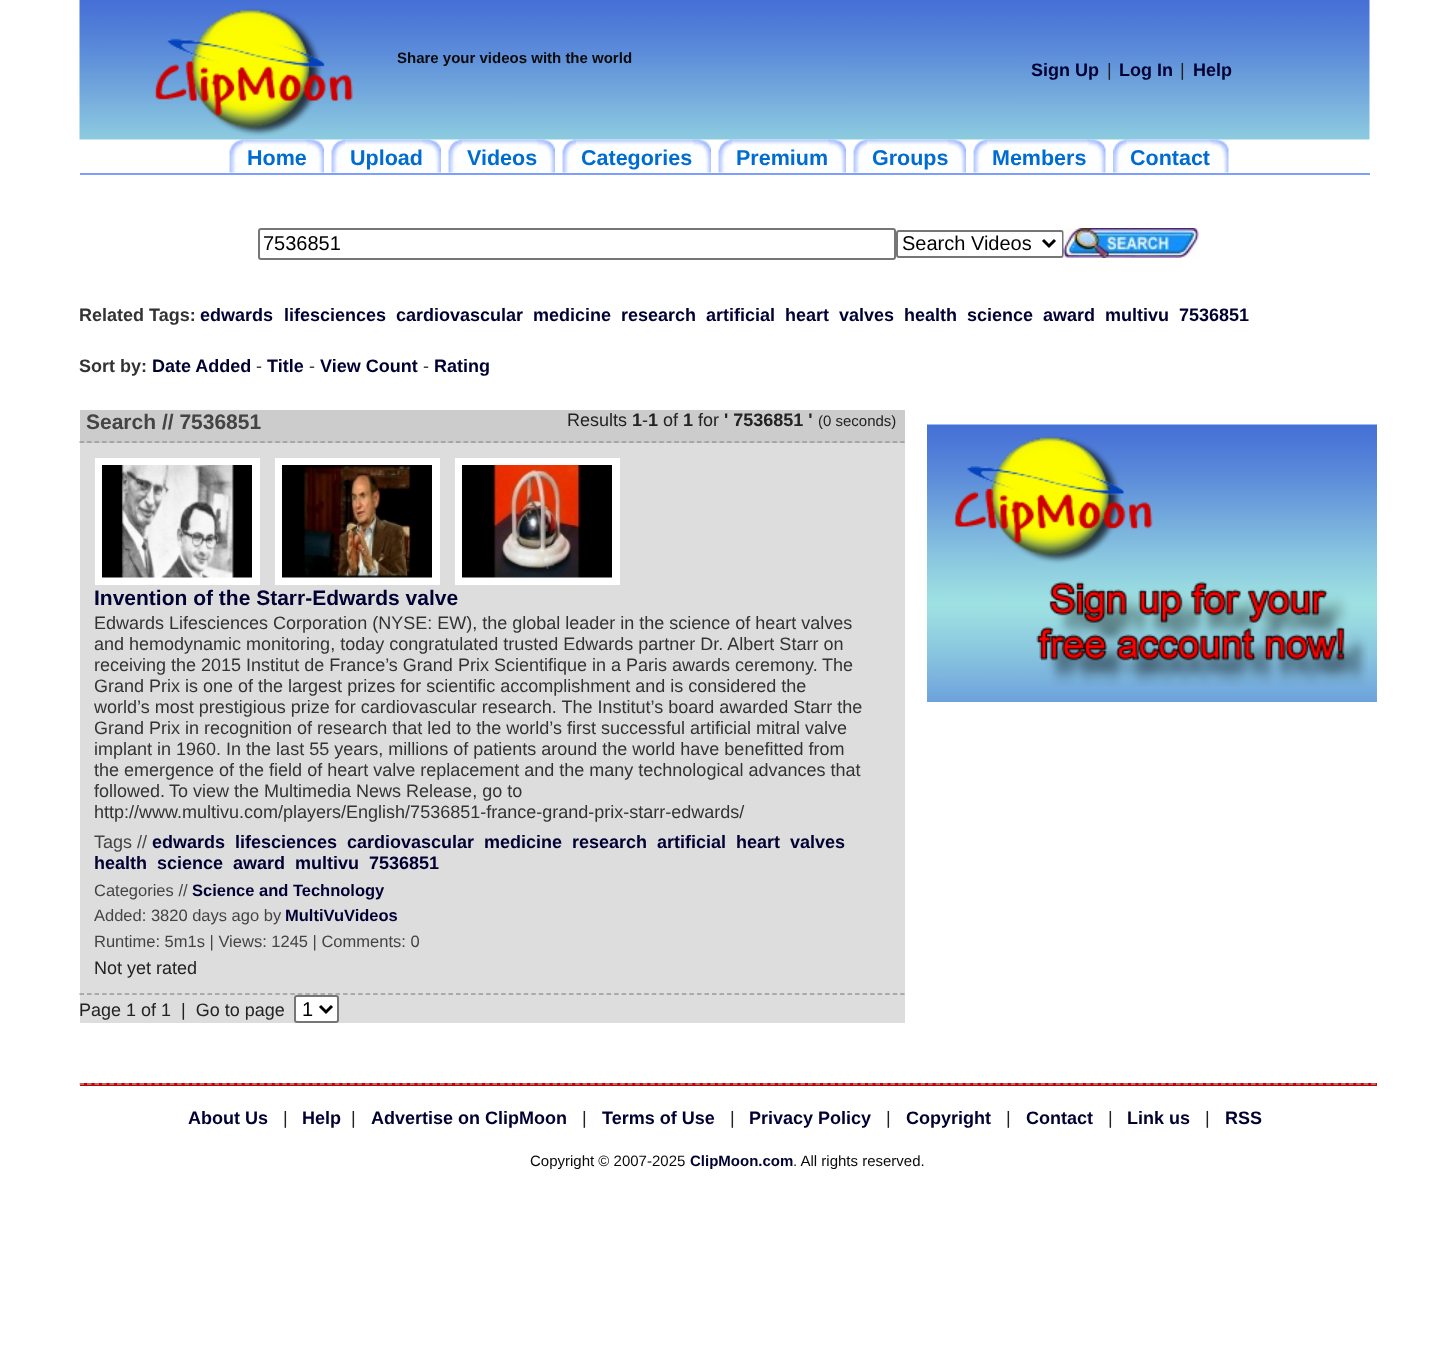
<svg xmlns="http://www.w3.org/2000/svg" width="1455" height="1370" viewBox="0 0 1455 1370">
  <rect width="100%" height="100%" fill="#ffffff"/>
  <image x="79" y="0" width="1291" height="140" href="img1.png"/>
  <image x="154" y="8" width="199" height="128" href="img2.png"/>
  <text x="397" y="63" font-family="Liberation Sans" font-size="15" font-weight="bold" fill="#0a0a0a">Share your videos with the world</text>
  <text x="1031" y="76" font-family="Liberation Sans" font-size="18" font-weight="bold" fill="#000033">Sign Up</text>
  <text x="1107" y="76" font-family="Liberation Sans" font-size="18" fill="#222222">|</text>
  <text x="1119" y="76" font-family="Liberation Sans" font-size="18" font-weight="bold" fill="#000033">Log In</text>
  <text x="1180" y="76" font-family="Liberation Sans" font-size="18" fill="#222222">|</text>
  <text x="1193" y="76" font-family="Liberation Sans" font-size="18" font-weight="bold" fill="#000033">Help</text>
  <rect x="80" y="173" width="1290" height="2" fill="#7e9fff"/>
  <image x="229" y="139" width="23" height="34" href="img3.png"/>
  <image x="243" y="139" width="81" height="34" href="img4.png"/>
  <text x="247" y="165" font-family="Liberation Sans" font-size="21.5" font-weight="bold" fill="#006cd1">Home</text>
  <image x="331" y="139" width="22" height="34" href="img5.png"/>
  <image x="345" y="139" width="96" height="34" href="img6.png"/>
  <text x="350" y="165" font-family="Liberation Sans" font-size="21.5" font-weight="bold" fill="#006cd1">Upload</text>
  <image x="448" y="139" width="22" height="34" href="img5.png"/>
  <image x="462" y="139" width="93" height="34" href="img7.png"/>
  <text x="467" y="165" font-family="Liberation Sans" font-size="21.5" font-weight="bold" fill="#006cd1">Videos</text>
  <image x="562" y="139" width="22" height="34" href="img8.png"/>
  <image x="576" y="139" width="135" height="34" href="img9.png"/>
  <text x="581" y="165" font-family="Liberation Sans" font-size="21.5" font-weight="bold" fill="#006cd1">Categories</text>
  <image x="718" y="139" width="22" height="34" href="img8.png"/>
  <image x="732" y="139" width="114" height="34" href="img10.png"/>
  <text x="736" y="165" font-family="Liberation Sans" font-size="21.5" font-weight="bold" fill="#006cd1">Premium</text>
  <image x="853" y="139" width="22" height="34" href="img5.png"/>
  <image x="867" y="139" width="99" height="34" href="img11.png"/>
  <text x="872" y="165" font-family="Liberation Sans" font-size="21.5" font-weight="bold" fill="#006cd1">Groups</text>
  <image x="973" y="139" width="22" height="34" href="img5.png"/>
  <image x="987" y="139" width="119" height="34" href="img12.png"/>
  <text x="992" y="165" font-family="Liberation Sans" font-size="21.5" font-weight="bold" fill="#006cd1">Members</text>
  <image x="1113" y="139" width="21" height="34" href="img13.png"/>
  <image x="1126" y="139" width="103" height="34" href="img14.png"/>
  <text x="1130" y="165" font-family="Liberation Sans" font-size="21.5" font-weight="bold" fill="#006cd1">Contact</text>
  <rect x="259" y="229" width="636" height="30" rx="2" fill="none" stroke="#767676" stroke-width="2"/>
  <text x="263" y="250" font-family="Liberation Sans" font-size="20" fill="#000000">7536851</text>
  <rect x="897" y="231" width="166" height="26" rx="2" fill="none" stroke="#767676" stroke-width="2"/>
  <path d="M1043 240L1049 246L1055 240" fill="none" stroke="#000000" stroke-width="3"/>
  <text x="902" y="250" font-family="Liberation Sans" font-size="20" fill="#000000">Search Videos</text>
  <image x="1063" y="228" width="136" height="30" href="img15.png"/>
  <text x="79" y="321" font-family="Liberation Sans" font-size="18" font-weight="bold" fill="#333333">Related Tags:</text>
  <text x="200" y="321" font-family="Liberation Sans" font-size="18" font-weight="bold" fill="#000033">edwards</text>
  <text x="284" y="321" font-family="Liberation Sans" font-size="18" font-weight="bold" fill="#000033">lifesciences</text>
  <text x="396" y="321" font-family="Liberation Sans" font-size="18" font-weight="bold" fill="#000033">cardiovascular</text>
  <text x="533" y="321" font-family="Liberation Sans" font-size="18" font-weight="bold" fill="#000033">medicine</text>
  <text x="621" y="321" font-family="Liberation Sans" font-size="18" font-weight="bold" fill="#000033">research</text>
  <text x="706" y="321" font-family="Liberation Sans" font-size="18" font-weight="bold" fill="#000033">artificial</text>
  <text x="785" y="321" font-family="Liberation Sans" font-size="18" font-weight="bold" fill="#000033">heart</text>
  <text x="839" y="321" font-family="Liberation Sans" font-size="18" font-weight="bold" fill="#000033">valves</text>
  <text x="904" y="321" font-family="Liberation Sans" font-size="18" font-weight="bold" fill="#000033">health</text>
  <text x="967" y="321" font-family="Liberation Sans" font-size="18" font-weight="bold" fill="#000033">science</text>
  <text x="1043" y="321" font-family="Liberation Sans" font-size="18" font-weight="bold" fill="#000033">award</text>
  <text x="1105" y="321" font-family="Liberation Sans" font-size="18" font-weight="bold" fill="#000033">multivu</text>
  <text x="1179" y="321" font-family="Liberation Sans" font-size="18" font-weight="bold" fill="#000033">7536851</text>
  <text x="79" y="372" font-family="Liberation Sans" font-size="18" font-weight="bold" fill="#333333">Sort by:</text>
  <text x="152" y="372" font-family="Liberation Sans" font-size="18" font-weight="bold" fill="#000033">Date Added</text>
  <text x="256" y="372" font-family="Liberation Sans" font-size="18" fill="#333333">-</text>
  <text x="267" y="372" font-family="Liberation Sans" font-size="18" font-weight="bold" fill="#000033">Title</text>
  <text x="309" y="372" font-family="Liberation Sans" font-size="18" fill="#333333">-</text>
  <text x="320" y="372" font-family="Liberation Sans" font-size="18" font-weight="bold" fill="#000033">View Count</text>
  <text x="423" y="372" font-family="Liberation Sans" font-size="18" fill="#333333">-</text>
  <text x="434" y="372" font-family="Liberation Sans" font-size="18" font-weight="bold" fill="#000033">Rating</text>
  <rect x="80" y="443" width="825" height="580" fill="#dddddd"/>
  <rect x="80" y="410" width="825" height="33" fill="#cccccc"/>
  <path d="M79.5 442H904.5" fill="none" stroke="#999999" stroke-width="1.5" stroke-dasharray="4.5 3.03"/>
  <text x="86" y="429" font-family="Liberation Sans" font-size="21" font-weight="bold" fill="#444444">Search // 7536851</text>
  <text x="567" y="426" font-family="Liberation Sans" font-size="18" fill="#222222">Results</text>
  <text x="632" y="426" font-family="Liberation Sans" font-size="18" font-weight="bold" fill="#222222">1</text>
  <text x="642" y="426" font-family="Liberation Sans" font-size="18" fill="#222222">-</text>
  <text x="648" y="426" font-family="Liberation Sans" font-size="18" font-weight="bold" fill="#222222">1</text>
  <text x="663" y="426" font-family="Liberation Sans" font-size="18" fill="#222222">of</text>
  <text x="683" y="426" font-family="Liberation Sans" font-size="18" font-weight="bold" fill="#222222">1</text>
  <text x="698" y="426" font-family="Liberation Sans" font-size="18" fill="#222222">for</text>
  <text x="724" y="426" font-family="Liberation Sans" font-size="18" font-weight="bold" fill="#222222">' 7536851 '</text>
  <text x="818" y="426" font-family="Liberation Sans" font-size="15" fill="#222222">(0 seconds)</text>
  <path d="M79.5 994H904.5" fill="none" stroke="#999999" stroke-width="1.5" stroke-dasharray="4.5 3.03"/>
  <rect x="99" y="462" width="157" height="119" fill="none" stroke="#ffffff" stroke-width="8"/>
  <image x="102" y="465" width="150" height="113" href="img16.png"/>
  <rect x="279" y="462" width="157" height="119" fill="none" stroke="#ffffff" stroke-width="8"/>
  <image x="282" y="465" width="150" height="113" href="img17.png"/>
  <rect x="459" y="462" width="157" height="119" fill="none" stroke="#ffffff" stroke-width="8"/>
  <image x="462" y="465" width="150" height="113" href="img18.png"/>
  <text x="94" y="605" font-family="Liberation Sans" font-size="21" font-weight="bold" fill="#000033">Invention of the Starr-Edwards valve</text>
  <text x="94" y="629" font-family="Liberation Sans" font-size="18" fill="#333333">Edwards Lifesciences Corporation (NYSE: EW), the global leader in the science of heart valves</text>
  <text x="94" y="650" font-family="Liberation Sans" font-size="18" fill="#333333">and hemodynamic monitoring, today congratulated trusted Edwards partner Dr. Albert Starr on</text>
  <text x="94" y="671" font-family="Liberation Sans" font-size="18" fill="#333333">receiving the 2015 Institut de France’s Grand Prix Scientifique in a Paris awards ceremony.</text>
  <text x="822" y="671" font-family="Liberation Sans" font-size="18" fill="#333333">The</text>
  <text x="94" y="692" font-family="Liberation Sans" font-size="18" fill="#333333">Grand Prix is one of the largest prizes for scientific accomplishment and is considered the</text>
  <text x="94" y="713" font-family="Liberation Sans" font-size="18" fill="#333333">world’s most prestigious prize for cardiovascular research. The Institut’s board awarded Starr the</text>
  <text x="94" y="734" font-family="Liberation Sans" font-size="18" fill="#333333">Grand Prix in recognition of research that led to the world’s first successful artificial mitral valve</text>
  <text x="94" y="755" font-family="Liberation Sans" font-size="18" fill="#333333">implant in 1960. In the last 55 years, millions of patients around the world have benefitted from</text>
  <text x="94" y="776" font-family="Liberation Sans" font-size="18" fill="#333333">the emergence of the field of heart valve replacement and the many technological advances that</text>
  <text x="94" y="797" font-family="Liberation Sans" font-size="18" fill="#333333">followed.</text>
  <text x="169" y="797" font-family="Liberation Sans" font-size="18" fill="#333333">To view the Multimedia News Release, go to</text>
  <text x="94" y="818" font-family="Liberation Sans" font-size="18" fill="#333333">http://www.multivu.com/players/English/7536851-france-grand-prix-starr-edwards/</text>
  <text x="94" y="848" font-family="Liberation Sans" font-size="18" fill="#444444">Tags //</text>
  <text x="152" y="848" font-family="Liberation Sans" font-size="18" font-weight="bold" fill="#000033">edwards</text>
  <text x="235" y="848" font-family="Liberation Sans" font-size="18" font-weight="bold" fill="#000033">lifesciences</text>
  <text x="347" y="848" font-family="Liberation Sans" font-size="18" font-weight="bold" fill="#000033">cardiovascular</text>
  <text x="484" y="848" font-family="Liberation Sans" font-size="18" font-weight="bold" fill="#000033">medicine</text>
  <text x="572" y="848" font-family="Liberation Sans" font-size="18" font-weight="bold" fill="#000033">research</text>
  <text x="657" y="848" font-family="Liberation Sans" font-size="18" font-weight="bold" fill="#000033">artificial</text>
  <text x="736" y="848" font-family="Liberation Sans" font-size="18" font-weight="bold" fill="#000033">heart</text>
  <text x="790" y="848" font-family="Liberation Sans" font-size="18" font-weight="bold" fill="#000033">valves</text>
  <text x="94" y="869" font-family="Liberation Sans" font-size="18" font-weight="bold" fill="#000033">health</text>
  <text x="157" y="869" font-family="Liberation Sans" font-size="18" font-weight="bold" fill="#000033">science</text>
  <text x="233" y="869" font-family="Liberation Sans" font-size="18" font-weight="bold" fill="#000033">award</text>
  <text x="295" y="869" font-family="Liberation Sans" font-size="18" font-weight="bold" fill="#000033">multivu</text>
  <text x="369" y="869" font-family="Liberation Sans" font-size="18" font-weight="bold" fill="#000033">7536851</text>
  <text x="94" y="896" font-family="Liberation Sans" font-size="16.5" fill="#444444">Categories //</text>
  <text x="192" y="896" font-family="Liberation Sans" font-size="16.5" font-weight="bold" fill="#000033">Science and Technology</text>
  <text x="94" y="921" font-family="Liberation Sans" font-size="16.5" fill="#444444">Added: 3820 days ago by</text>
  <text x="285" y="921" font-family="Liberation Sans" font-size="16.5" font-weight="bold" fill="#000033">MultiVuVideos</text>
  <text x="94" y="947" font-family="Liberation Sans" font-size="16.5" fill="#444444">Runtime: 5m1s | Views: 1245 | Comments: 0</text>
  <text x="94" y="974" font-family="Liberation Sans" font-size="18" fill="#222222">Not yet rated</text>
  <text x="79" y="1016" font-family="Liberation Sans" font-size="18" fill="#222222" xml:space="preserve">Page 1 of 1  |  Go to page</text>
  <rect x="295" y="996" width="43" height="26" rx="2" fill="#ffffff" stroke="#767676" stroke-width="2"/>
  <path d="M320 1006L326 1012L332 1006" fill="none" stroke="#000000" stroke-width="3"/>
  <text x="302" y="1016" font-family="Liberation Sans" font-size="20" fill="#000000">1</text>
  <image x="927" y="424" width="450" height="278" href="img19.png"/>
  <image x="954" y="436" width="414" height="250" href="img20.png"/>
  <rect x="80" y="1083" width="1297" height="3" fill="#cc0000"/>
  <path d="M79.5 1084H1377" fill="none" stroke="#999999" stroke-width="1.5" stroke-dasharray="4.5 3.01"/>
  <text x="188" y="1124" font-family="Liberation Sans" font-size="18" font-weight="bold" fill="#000033">About Us</text>
  <text x="283" y="1124" font-family="Liberation Sans" font-size="18" fill="#222222">|</text>
  <text x="302" y="1124" font-family="Liberation Sans" font-size="18" font-weight="bold" fill="#000033">Help</text>
  <text x="351" y="1124" font-family="Liberation Sans" font-size="18" fill="#222222">|</text>
  <text x="371" y="1124" font-family="Liberation Sans" font-size="18" font-weight="bold" fill="#000033">Advertise on ClipMoon</text>
  <text x="582" y="1124" font-family="Liberation Sans" font-size="18" fill="#222222">|</text>
  <text x="602" y="1124" font-family="Liberation Sans" font-size="18" font-weight="bold" fill="#000033">Terms of Use</text>
  <text x="730" y="1124" font-family="Liberation Sans" font-size="18" fill="#222222">|</text>
  <text x="749" y="1124" font-family="Liberation Sans" font-size="18" font-weight="bold" fill="#000033">Privacy Policy</text>
  <text x="886" y="1124" font-family="Liberation Sans" font-size="18" fill="#222222">|</text>
  <text x="906" y="1124" font-family="Liberation Sans" font-size="18" font-weight="bold" fill="#000033">Copyright</text>
  <text x="1006" y="1124" font-family="Liberation Sans" font-size="18" fill="#222222">|</text>
  <text x="1026" y="1124" font-family="Liberation Sans" font-size="18" font-weight="bold" fill="#000033">Contact</text>
  <text x="1108" y="1124" font-family="Liberation Sans" font-size="18" fill="#222222">|</text>
  <text x="1127" y="1124" font-family="Liberation Sans" font-size="18" font-weight="bold" fill="#000033">Link us</text>
  <text x="1205" y="1124" font-family="Liberation Sans" font-size="18" fill="#222222">|</text>
  <text x="1225" y="1124" font-family="Liberation Sans" font-size="18" font-weight="bold" fill="#000033">RSS</text>
  <text x="530" y="1166" font-family="Liberation Sans" font-size="15" fill="#0a0a0a">Copyright © 2007-2025</text>
  <text x="690" y="1166" font-family="Liberation Sans" font-size="15" font-weight="bold" fill="#000033">ClipMoon.com</text>
  <text x="793" y="1166" font-family="Liberation Sans" font-size="15" fill="#0a0a0a">. All rights reserved.</text>
</svg>
